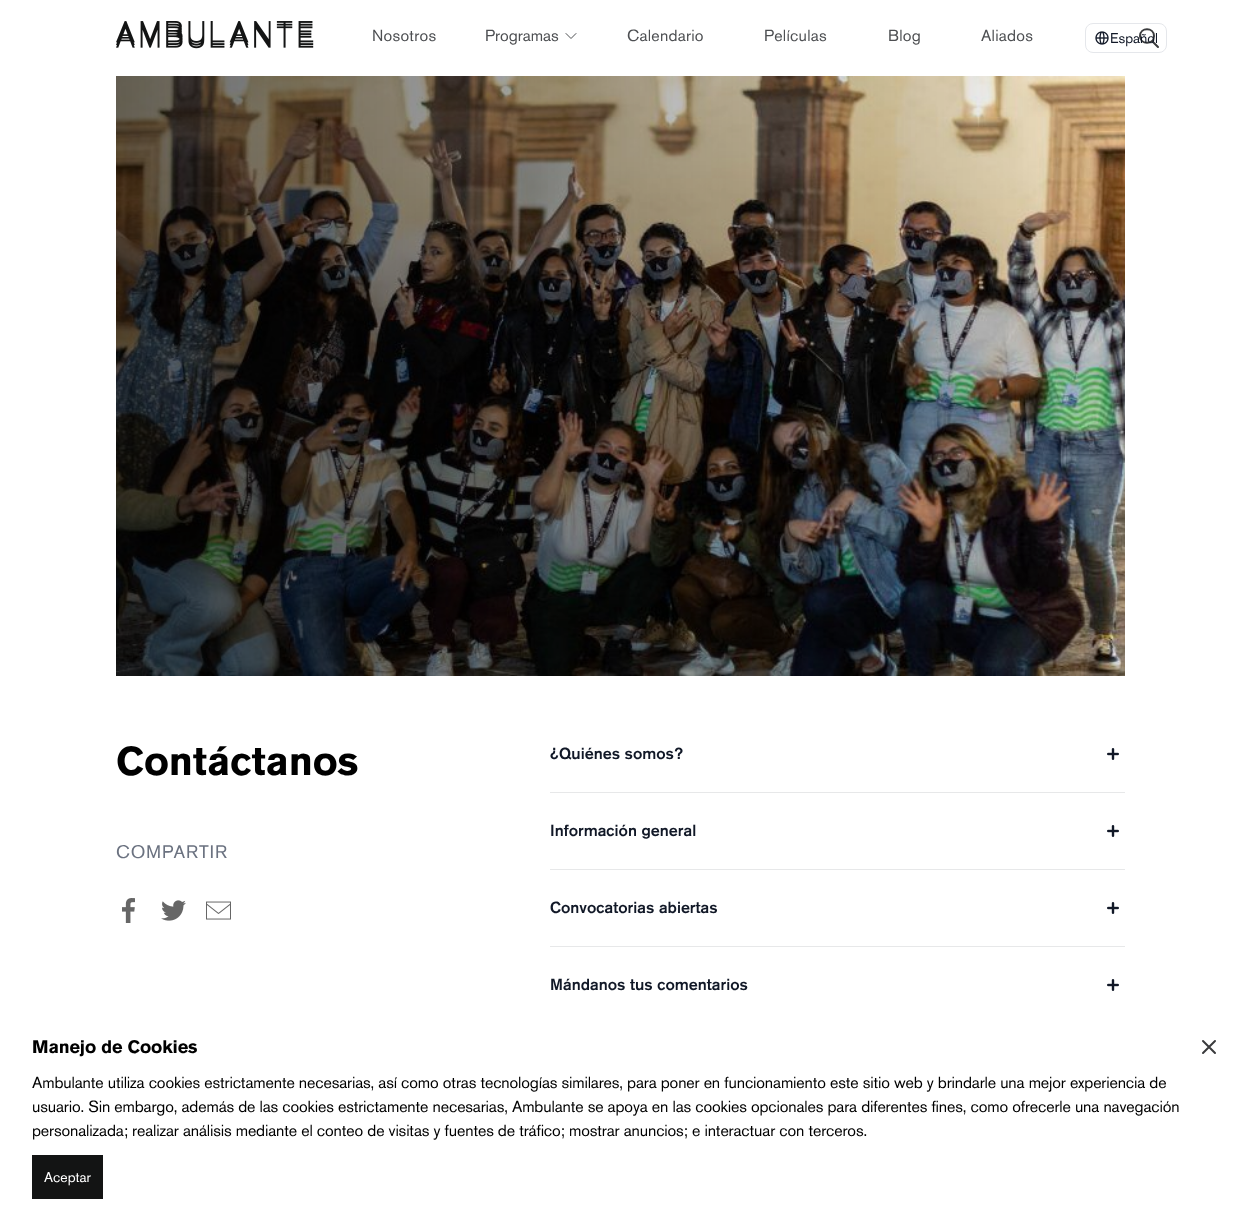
<svg xmlns="http://www.w3.org/2000/svg" width="1241" height="1211" viewBox="0 0 1241 1211">
  <rect width="100%" height="100%" fill="#ffffff"/>
  <path d="M1158 47L1152 41M1154 36C1154 45 1140 45 1140 36C1140 27 1154 27 1154 36Z" fill="none" stroke="#3a3b3d" stroke-width="2" stroke-linecap="round" stroke-linejoin="round"/>
  <image x="116" y="21" width="198" height="28" href="img1.png"/>
  <text x="372" y="41" font-family="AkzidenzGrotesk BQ" font-size="16" font-weight="500" letter-spacing="0.25" fill="#4d4f52">Nosotros</text>
  <text x="485" y="41" font-family="AkzidenzGrotesk BQ" font-size="16" font-weight="500" fill="#4d4f52">Programas</text>
  <path d="M576 33.5L571 38.5L566 33.5" fill="none" stroke="#4d4f52" stroke-linecap="round" stroke-linejoin="round"/>
  <text x="627" y="41" font-family="AkzidenzGrotesk BQ" font-size="16" font-weight="500" letter-spacing="0.25" fill="#4d4f52">Calendario</text>
  <text x="764" y="41" font-family="AkzidenzGrotesk BQ" font-size="16" font-weight="500" letter-spacing="0.25" fill="#4d4f52">Películas</text>
  <text x="888" y="41" font-family="AkzidenzGrotesk BQ" font-size="16" font-weight="500" letter-spacing="0.25" fill="#4d4f52">Blog</text>
  <text x="981" y="41" font-family="AkzidenzGrotesk BQ" font-size="16" font-weight="500" letter-spacing="0.25" fill="#4d4f52">Aliados</text>
  <rect x="1085.5" y="23.5" width="81" height="29" rx="7.5" fill="none" stroke="#e5e7eb"/>
  <image x="1095" y="31" width="14" height="14" href="img2.png"/>
  <text x="1110" y="43" font-family="AkzidenzGrotesk BQ" font-size="14" font-weight="500" fill="#111827">Español</text>
  <image x="116" y="76" width="1009" height="600" href="img3.png"/>
  <text x="116" y="775" font-family="AkzidenzGrotesk BQ" font-size="40" font-weight="bold" letter-spacing="-0.13" fill="#000000">Contáctanos</text>
  <text x="116" y="858" font-family="AkzidenzGrotesk BQ" font-size="18" font-weight="500" letter-spacing="1" fill="#6b7280">COMPARTIR</text>
  <image x="122" y="898" width="13" height="25" href="img4.png"/>
  <image x="161" y="900" width="25" height="21" href="img5.png"/>
  <image x="206" y="901" width="25" height="19" href="img6.png"/>
  <text x="550" y="759" font-family="'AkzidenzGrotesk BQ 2'" font-size="16" font-weight="500" fill="#111827">¿Quiénes somos?</text>
  <image x="1107" y="748" width="12" height="12" href="img7.png"/>
  <rect x="550" y="792" width="575" height="1" fill="#e7e8e9"/>
  <text x="550" y="836" font-family="'AkzidenzGrotesk BQ 2'" font-size="16" font-weight="500" fill="#111827">Información general</text>
  <image x="1107" y="825" width="12" height="12" href="img7.png"/>
  <rect x="550" y="869" width="575" height="1" fill="#e7e8e9"/>
  <text x="550" y="913" font-family="'AkzidenzGrotesk BQ 2'" font-size="16" font-weight="500" fill="#111827">Convocatorias abiertas</text>
  <image x="1107" y="902" width="12" height="12" href="img7.png"/>
  <rect x="550" y="946" width="575" height="1" fill="#e7e8e9"/>
  <text x="550" y="990" font-family="'AkzidenzGrotesk BQ 2'" font-size="16" font-weight="500" fill="#111827">Mándanos tus comentarios</text>
  <image x="1107" y="979" width="12" height="12" href="img7.png"/>
  <text x="32" y="1053" font-family="AkzidenzGrotesk BQ" font-size="18" font-weight="bold" letter-spacing="-0.13" fill="#000000">Manejo de Cookies</text>
  <path d="M1203 1053L1215 1041M1203 1041L1215 1053" fill="none" stroke="#3a3b3d" stroke-width="2" stroke-linecap="round" stroke-linejoin="round"/>
  <text x="32" y="1088" font-family="AkzidenzGrotesk BQ" font-size="16" font-weight="500" letter-spacing="-0.13" fill="#000000">Ambulante utiliza cookies estrictamente necesarias, así como otras tecnologías similares, para poner en funcionamiento este sitio web y brindarle una mejor experiencia de</text>
  <text x="32" y="1112" font-family="AkzidenzGrotesk BQ" font-size="16" font-weight="500" letter-spacing="-0.13" fill="#000000">usuario. Sin embargo, además de las cookies estrictamente necesarias, Ambulante se apoya en las cookies opcionales para diferentes fines, como ofrecerle una navegación</text>
  <text x="32" y="1136" font-family="AkzidenzGrotesk BQ" font-size="16" font-weight="500" letter-spacing="-0.13" fill="#000000">personalizada; realizar análisis mediante el conteo de visitas y fuentes de tráfico; mostrar anuncios; e interactuar con terceros.</text>
  <rect x="32" y="1155" width="71" height="44" fill="#131414"/>
  <text x="44" y="1182" font-family="AkzidenzGrotesk BQ" font-size="14" font-weight="500" fill="#ffffff">Aceptar</text>
</svg>
